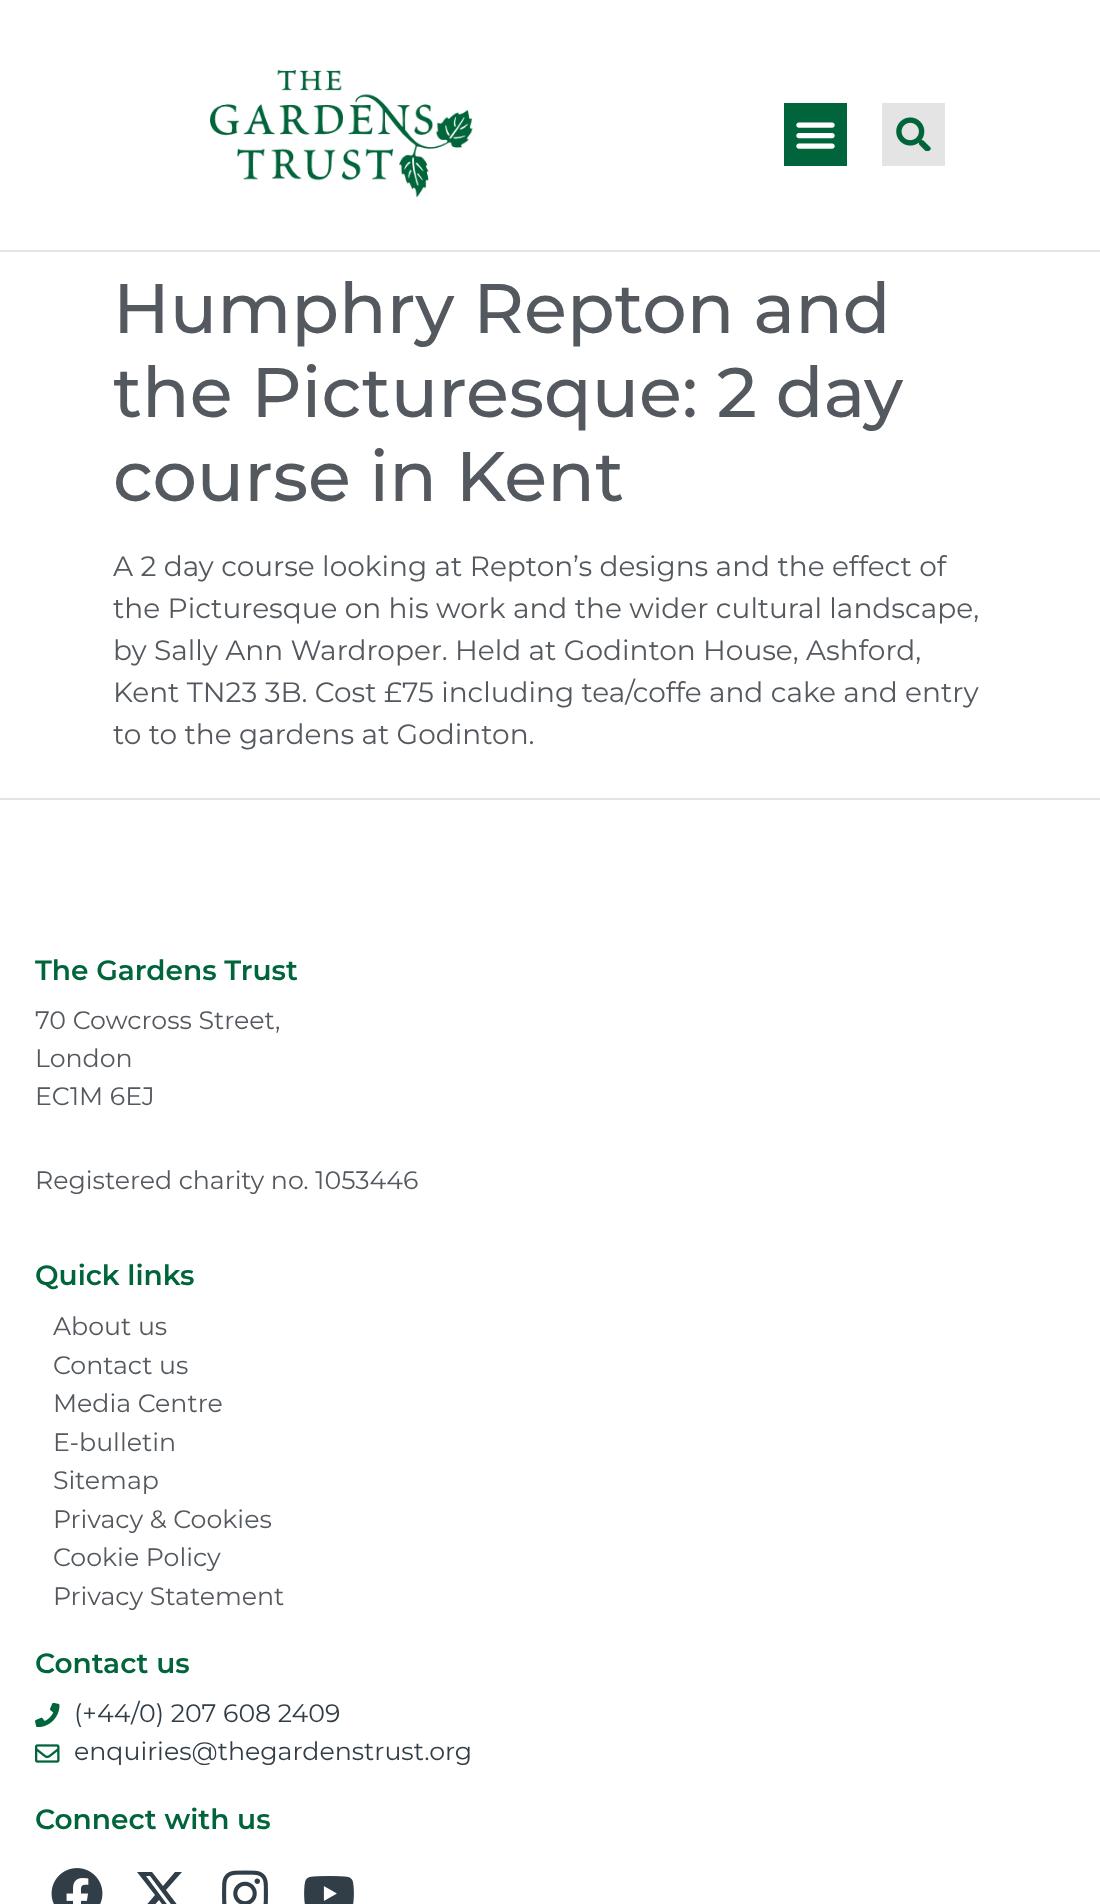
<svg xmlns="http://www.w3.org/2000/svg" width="1100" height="1904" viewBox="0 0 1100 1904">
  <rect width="100%" height="100%" fill="#ffffff"/>
  <rect x="0" y="250" width="1100" height="2" fill="#e4e4e4"/>
  <image x="210" y="70" width="263" height="128" href="img1.png"/>
  <rect x="784" y="103" width="63" height="63" fill="#00653a"/>
  <image x="796" y="122" width="39" height="27" href="img2.png"/>
  <rect x="882" y="103" width="63" height="63" fill="#e4e4e4"/>
  <image x="896" y="117" width="35" height="34" href="img3.png"/>
  <text x="113" y="333" font-family="Montserrat" font-size="70" font-weight="500" fill="#54595f">Humphry Repton and</text>
  <text x="113" y="417" font-family="Montserrat" font-size="70" font-weight="500" fill="#54595f">the Picturesque: 2 day</text>
  <text x="113" y="501" font-family="Montserrat" font-size="70" font-weight="500" fill="#54595f">course in Kent</text>
  <text x="113" y="576" font-family="Montserrat" font-size="28" fill="#54595f">A 2 day course looking at Repton’s designs and the effect of</text>
  <text x="113" y="618" font-family="Montserrat" font-size="28" fill="#54595f">the Picturesque on his work and the wider cultural landscape,</text>
  <text x="113" y="660" font-family="Montserrat" font-size="28" fill="#54595f">by Sally Ann Wardroper. Held at Godinton House, Ashford,</text>
  <text x="113" y="702" font-family="Montserrat" font-size="28" fill="#54595f">Kent TN23 3B. Cost £75 including tea/coffe and cake and entry</text>
  <text x="113" y="744" font-family="Montserrat" font-size="28" fill="#54595f">to to the gardens at Godinton.</text>
  <rect x="0" y="798" width="1100" height="2" fill="#e4e4e4"/>
  <text x="35" y="980" font-family="Montserrat" font-size="28" font-weight="600" fill="#00653a">The Gardens Trust</text>
  <text x="35" y="1029" font-family="Montserrat" font-size="25.25" fill="#54595f">70 Cowcross Street,</text>
  <text x="35" y="1067" font-family="Montserrat" font-size="25.25" fill="#54595f">London</text>
  <text x="35" y="1105" font-family="Montserrat" font-size="25.25" fill="#54595f">EC1M 6EJ</text>
  <text x="35" y="1189" font-family="Montserrat" font-size="25.25" fill="#54595f">Registered charity no. 1053446</text>
  <text x="35" y="1285" font-family="Montserrat" font-size="28" font-weight="600" fill="#00653a">Quick links</text>
  <text x="53" y="1335" font-family="Montserrat" font-size="25.25" fill="#54595f">About us</text>
  <text x="53" y="1374" font-family="Montserrat" font-size="25.25" fill="#54595f">Contact us</text>
  <text x="53" y="1412" font-family="Montserrat" font-size="25.25" fill="#54595f">Media Centre</text>
  <text x="53" y="1451" font-family="Montserrat" font-size="25.25" fill="#54595f">E-bulletin</text>
  <text x="53" y="1489" font-family="Montserrat" font-size="25.25" fill="#54595f">Sitemap</text>
  <text x="53" y="1528" font-family="Montserrat" font-size="25.25" fill="#54595f">Privacy &amp; Cookies</text>
  <text x="53" y="1566" font-family="Montserrat" font-size="25.25" fill="#54595f">Cookie Policy</text>
  <text x="53" y="1605" font-family="Montserrat" font-size="25.25" fill="#54595f">Privacy Statement</text>
  <text x="35" y="1673" font-family="Montserrat" font-size="28" font-weight="600" fill="#00653a">Contact us</text>
  <image x="35" y="1703" width="25" height="24" href="img4.png"/>
  <text x="74" y="1722" font-family="Montserrat" font-size="25.25" fill="#313e47">(+44/0) 207 608 2409</text>
  <image x="35" y="1744" width="25" height="19" href="img5.png"/>
  <text x="74" y="1760" font-family="Montserrat" font-size="25.25" fill="#313e47">enquiries@thegardenstrust.org</text>
  <text x="35" y="1829" font-family="Montserrat" font-size="28" font-weight="600" fill="#00653a">Connect with us</text>
  <image x="51" y="1868" width="52" height="36" href="img6.png"/>
  <path d="M175 1872H182L166 1890L185 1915H170L159 1900L146 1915H138L155 1895L137 1872H152L163 1886ZM172 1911H176L150 1876H146Z" fill="#313e47"/>
  <image x="222" y="1870" width="46" height="34" href="img7.png"/>
  <image x="304" y="1876" width="50" height="28" href="img8.png"/>
</svg>
